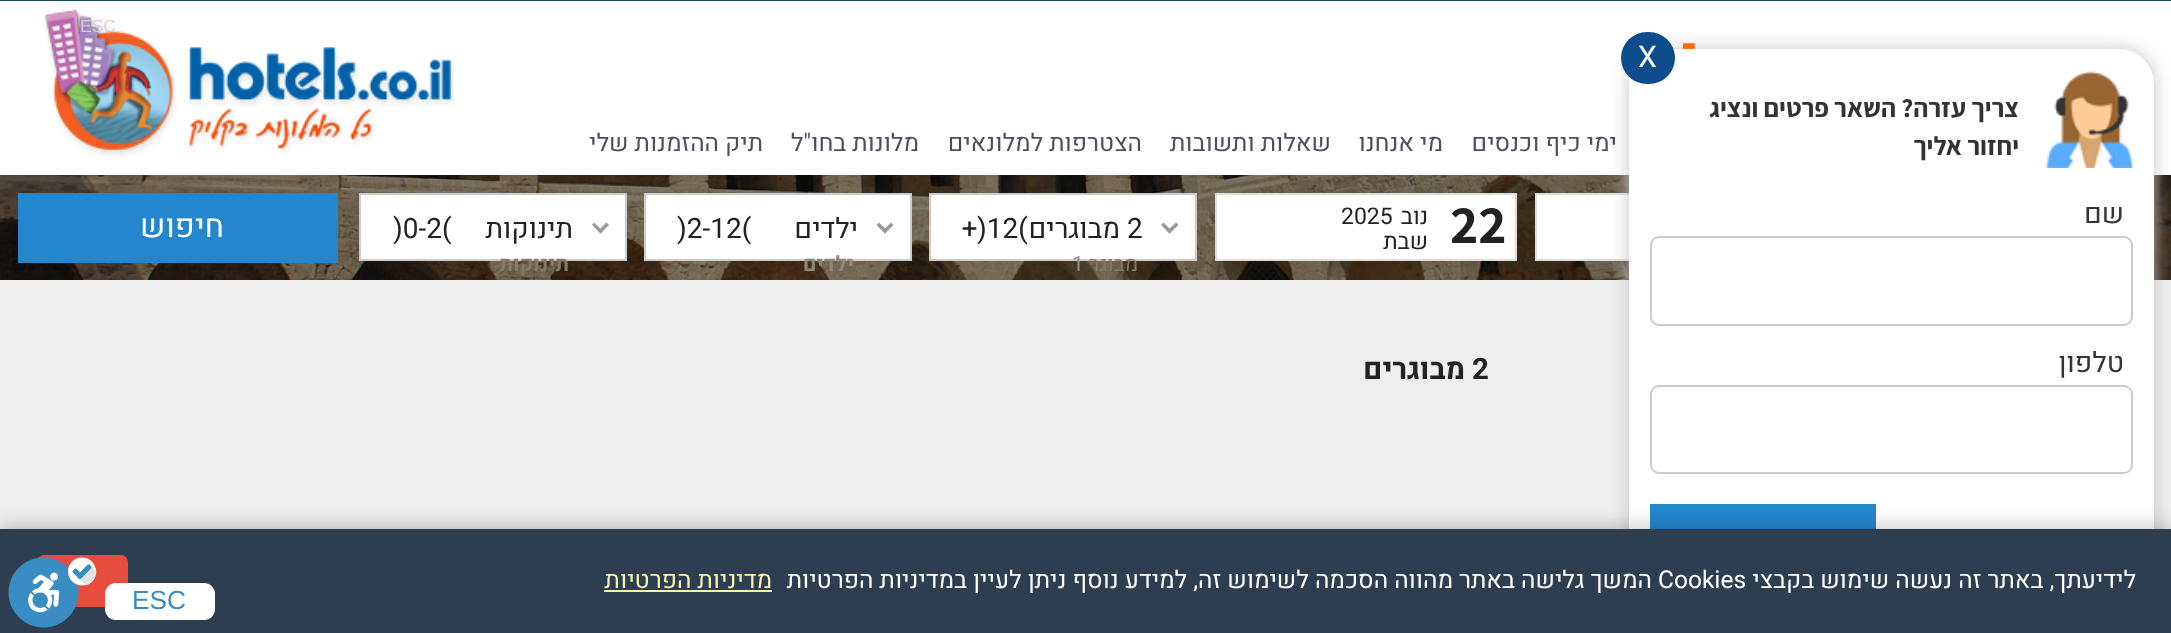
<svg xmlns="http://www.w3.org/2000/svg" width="2171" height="633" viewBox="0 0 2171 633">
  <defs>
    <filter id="blur1" x="-50%" y="-200%" width="200%" height="500%"><feGaussianBlur stdDeviation="9"/></filter>
  </defs>
  <rect width="100%" height="100%" fill="#eeeeee"/>
  <rect x="0" y="1" width="2171" height="174" fill="#ffffff"/>
  <image x="0" y="175" width="2171" height="105" href="img3.png"/>
  <rect x="1537" y="195" width="92" height="64" fill="#ffffff"/>
  <rect x="1536" y="194" width="301" height="66" fill="none" stroke="#dedede" stroke-width="2"/>
  <rect x="1629" y="49" width="525" height="567" rx="35" fill="#c7c3c3" filter="url(#blur1)"/>
  <rect x="1629" y="49" width="525" height="567" rx="35" fill="#ffffff"/>
  <rect x="1621" y="32" width="54" height="52" rx="26" fill="#0e4d8d"/>
  <text x="1638" y="67" font-family="Heebo" font-size="30" fill="#ffffff">X</text>
  <image x="2045" y="71" width="88" height="97" href="img1.png"/>
  <text x="2019" y="117" font-family="Assistant" font-size="26.25" font-weight="bold" direction="rtl" fill="#333333">צריך עזרה? השאר פרטים ונציג</text>
  <text x="2019" y="155" font-family="Assistant" font-size="26.25" font-weight="bold" direction="rtl" fill="#333333">יחזור אליך</text>
  <text x="2124" y="223" font-family="Heebo" font-size="28" direction="rtl" fill="#333333">שם</text>
  <rect x="1651" y="237" width="481" height="88" rx="8" fill="none" stroke="#cccccc" stroke-width="2"/>
  <text x="2124" y="372" font-family="Heebo" font-size="28" direction="rtl" fill="#333333">טלפון</text>
  <rect x="1651" y="386" width="481" height="87" rx="8" fill="none" stroke="#cccccc" stroke-width="2"/>
  <rect x="1650" y="504" width="226" height="25" fill="#2487ce"/>
  <text x="1680" y="58" font-family="Heebo" font-size="39" font-weight="900" fill="#ff6600">-</text>
  <image x="44" y="9" width="411" height="148" href="img2.png"/>
  <text x="1617" y="151" font-family="Heebo" font-size="24.5" direction="rtl" fill="#524c61">ימי כיף וכנסים</text>
  <text x="1443" y="151" font-family="Heebo" font-size="24.5" direction="rtl" fill="#524c61">מי אנחנו</text>
  <text x="1331" y="151" font-family="Heebo" font-size="24.5" direction="rtl" fill="#524c61">שאלות ותשובות</text>
  <text x="1142" y="151" font-family="Heebo" font-size="24.5" direction="rtl" fill="#524c61">הצטרפות למלונאים</text>
  <text x="919" y="151" font-family="Heebo" font-size="24.5" direction="rtl" fill="#524c61">מלונות בחו"ל</text>
  <text x="763" y="151" font-family="Heebo" font-size="24.5" direction="rtl" fill="#524c61">תיק ההזמנות שלי</text>
  <rect x="1216" y="194" width="300" height="66" fill="#ffffff" stroke="#dedede" stroke-width="2"/>
  <text x="1450" y="243" font-family="Assistant" font-size="54" font-weight="bold" fill="#222222">22</text>
  <text x="1428" y="224" font-family="Heebo" font-size="23" direction="rtl" fill="#222222">נוב</text>
  <text x="1341" y="224" font-family="Heebo" font-size="23" fill="#222222">2025</text>
  <text x="1428" y="249" font-family="Heebo" font-size="23" direction="rtl" fill="#222222">שבת</text>
  <rect x="930" y="194" width="266" height="66" fill="#ffffff" stroke="#cccccc" stroke-width="2"/>
  <path d="M1176 222.5L1178.5 225L1169.5 233.5L1167 231Z" fill="#999999"/>
  <path d="M1163.5 222.5L1172 231L1169.5 233.5L1161 225Z" fill="#999999"/>
  <text x="1127" y="238" font-family="Heebo" font-size="28" fill="#222222">2</text>
  <text x="1120" y="238" font-family="Heebo" font-size="28" direction="rtl" fill="#222222">מבוגרים</text>
  <text x="962" y="238" font-family="Heebo" font-size="28" fill="#222222">+)12(</text>
  <text x="1138" y="271" font-family="Heebo" font-size="21" direction="rtl" fill="#847a6c">מבוגר</text>
  <text x="1072" y="271" font-family="Heebo" font-size="21" fill="#979188">1</text>
  <rect x="645" y="194" width="266" height="66" fill="#ffffff" stroke="#cccccc" stroke-width="2"/>
  <path d="M891 222.5L893.5 225L885 233.5L882.5 231Z" fill="#999999"/>
  <path d="M879 222.5L887.5 231L885 233.5L876.5 225Z" fill="#999999"/>
  <text x="858" y="238" font-family="Heebo" font-size="28" direction="rtl" fill="#222222">ילדים</text>
  <text x="677" y="238" font-family="Heebo" font-size="28" fill="#222222">)2-12(</text>
  <text x="854" y="271" font-family="Heebo" font-size="21" font-weight="bold" direction="rtl" fill="#90877b">ילדים</text>
  <rect x="360" y="194" width="266" height="66" fill="#ffffff" stroke="#cccccc" stroke-width="2"/>
  <path d="M606.5 222.5L609 225L600.5 233.5L598 231Z" fill="#999999"/>
  <path d="M594 222.5L603 231L600.5 233.5L592 225Z" fill="#999999"/>
  <text x="573" y="238" font-family="Heebo" font-size="28" direction="rtl" fill="#222222">תינוקות</text>
  <text x="393" y="238" font-family="Heebo" font-size="28" fill="#222222">)0-2(</text>
  <text x="569" y="271" font-family="Heebo" font-size="21" font-weight="bold" direction="rtl" fill="#847a6c">תינוקות</text>
  <rect x="18" y="193" width="320" height="70" fill="#2487ce"/>
  <text x="224" y="237" font-family="Heebo" font-size="32" direction="rtl" fill="#ffffff">חיפוש</text>
  <text x="1472" y="379" font-family="Heebo" font-size="29.5" font-weight="bold" fill="#222222">2</text>
  <text x="1465" y="379" font-family="Heebo" font-size="29.5" font-weight="bold" direction="rtl" fill="#222222">מבוגרים</text>
  <rect x="0" y="0" width="2171" height="1" fill="#15495f"/>
  <text x="80" y="32" font-family="Liberation Sans" font-size="17.5" fill="#d7cadf">ESC</text>
  <rect x="0" y="525" width="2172" height="105" fill="#000000" fill-opacity="0.2" filter="url(#blur1)"/>
  <rect x="0" y="529" width="2171" height="104" fill="#2c3e50"/>
  <rect x="37" y="555" width="91" height="52" rx="7" fill="#e74c3c"/>
  <rect x="105" y="583" width="110" height="37" rx="11" fill="#ffffff"/>
  <text x="132" y="609" font-family="Liberation Sans" font-size="26.25" fill="#3a8dc2">ESC</text>
  <image x="8" y="557" width="89" height="71" href="img4.png"/>
  <text x="2136" y="588" font-family="Heebo" font-size="24.5" direction="rtl" fill="#ffffff">לידיעתך, באתר זה נעשה שימוש בקבצי</text>
  <text x="1658" y="588" font-family="Heebo" font-size="24.5" fill="#ffffff">Cookies</text>
  <text x="1652" y="588" font-family="Heebo" font-size="24.5" direction="rtl" fill="#ffffff">המשך גלישה באתר מהווה הסכמה לשימוש זה, למידע נוסף ניתן לעיין במדיניות הפרטיות</text>
  <text x="772" y="588" font-family="Heebo" font-size="24.5" direction="rtl" fill="#f9f3ae">מדיניות הפרטיות</text>
  <rect x="604" y="590" width="168" height="2" fill="#f9f3ae"/>
</svg>
